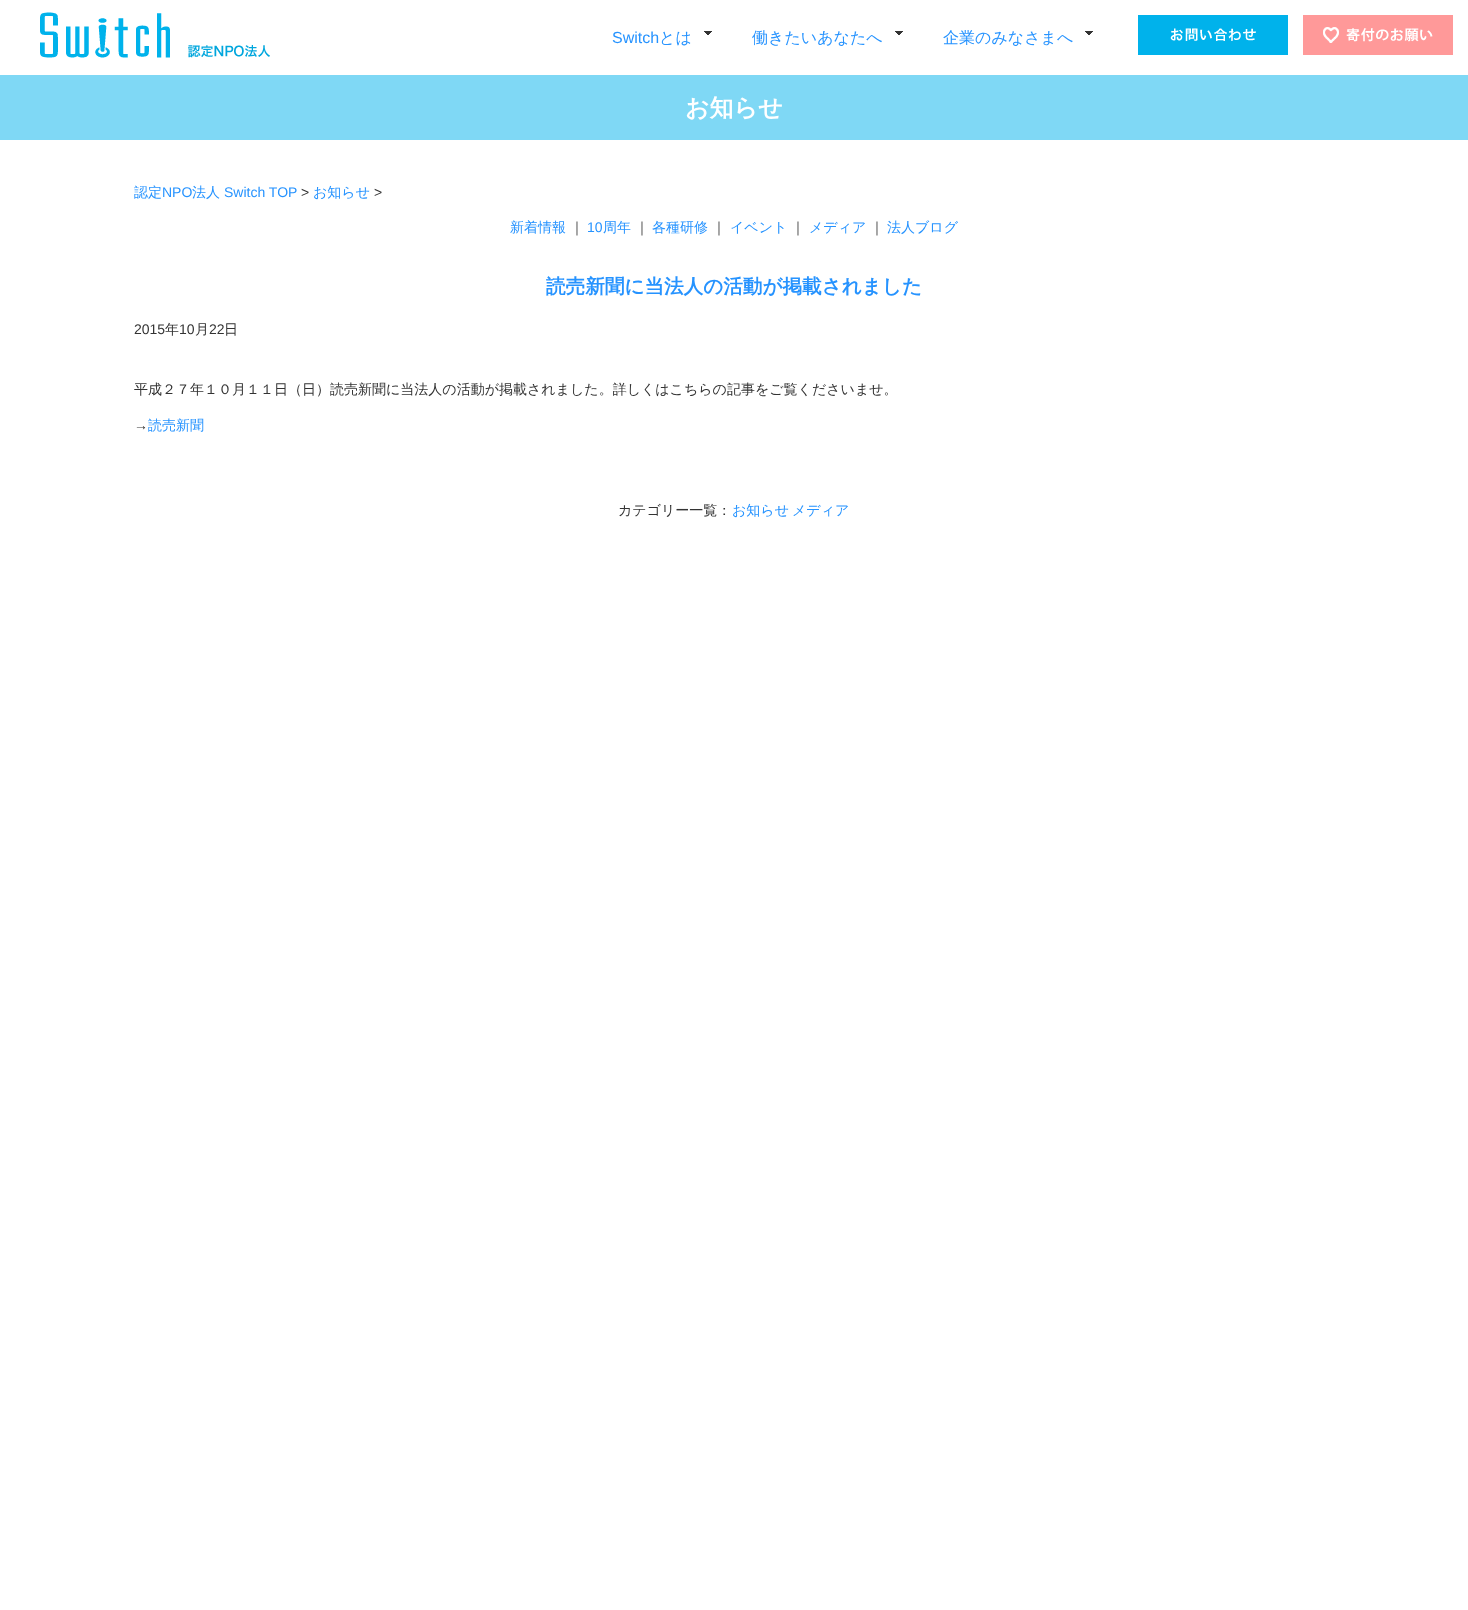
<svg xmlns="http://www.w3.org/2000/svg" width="1468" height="1610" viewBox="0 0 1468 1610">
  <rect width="100%" height="100%" fill="#ffffff"/>
  <image x="40" y="12" width="230" height="46" href="img1.png"/>
  <image x="704" y="31" width="8" height="4" href="img2.png"/>
  <text x="612" y="43" font-family="Liberation Sans" font-size="16" fill="#2693ff">Switch</text>
  <text x="659" y="43" font-family="WenQuanYi Zen Hei" font-size="16" font-weight="500" fill="#2693ff">とは</text>
  <image x="895" y="31" width="8" height="4" href="img2.png"/>
  <text x="752" y="43" font-family="WenQuanYi Zen Hei" font-size="16" font-weight="500" fill="#2693ff">働きたいあなたへ</text>
  <image x="1085" y="31" width="8" height="4" href="img2.png"/>
  <text x="943" y="43" font-family="WenQuanYi Zen Hei" font-size="16" font-weight="500" fill="#2693ff">企業のみなさまへ</text>
  <image x="1138" y="15" width="150" height="40" href="img3.png"/>
  <image x="1303" y="15" width="150" height="40" href="img4.png"/>
  <rect x="0" y="75" width="1468" height="65" fill="#7fd8f5"/>
  <text x="685" y="116" font-family="WenQuanYi Zen Hei" font-size="24" font-weight="bold" fill="#ffffff">お知らせ</text>
  <text x="134" y="197" font-family="WenQuanYi Zen Hei" font-size="14" font-weight="500" fill="#2693ff">認定</text>
  <text x="162" y="197" font-family="Liberation Sans" font-size="14" fill="#2693ff">NPO</text>
  <text x="192" y="197" font-family="WenQuanYi Zen Hei" font-size="14" font-weight="500" fill="#2693ff">法人</text>
  <text x="224" y="197" font-family="Liberation Sans" font-size="14" fill="#2693ff">Switch TOP</text>
  <text x="301" y="197" font-family="Liberation Sans" font-size="14" fill="#333333">&gt;</text>
  <text x="313" y="197" font-family="WenQuanYi Zen Hei" font-size="14" font-weight="500" fill="#2693ff">お知らせ</text>
  <text x="374" y="197" font-family="Liberation Sans" font-size="14" fill="#333333">&gt;</text>
  <text x="510" y="232" font-family="WenQuanYi Zen Hei" font-size="14" font-weight="500" fill="#2693ff">新着情報</text>
  <text x="570" y="232" font-family="WenQuanYi Zen Hei" font-size="14" font-weight="500" fill="#333333">｜</text>
  <text x="587" y="232" font-family="Liberation Sans" font-size="14" fill="#2693ff">10</text>
  <text x="603" y="232" font-family="WenQuanYi Zen Hei" font-size="14" font-weight="500" fill="#2693ff">周年</text>
  <text x="635" y="232" font-family="WenQuanYi Zen Hei" font-size="14" font-weight="500" fill="#333333">｜</text>
  <text x="652" y="232" font-family="WenQuanYi Zen Hei" font-size="14" font-weight="500" fill="#2693ff">各種研修</text>
  <text x="712" y="232" font-family="WenQuanYi Zen Hei" font-size="14" font-weight="500" fill="#333333">｜</text>
  <text x="730" y="232" font-family="WenQuanYi Zen Hei" font-size="14" font-weight="500" fill="#2693ff">イベント</text>
  <text x="791" y="232" font-family="WenQuanYi Zen Hei" font-size="14" font-weight="500" fill="#333333">｜</text>
  <text x="809" y="232" font-family="WenQuanYi Zen Hei" font-size="14" font-weight="500" fill="#2693ff">メディア</text>
  <text x="870" y="232" font-family="WenQuanYi Zen Hei" font-size="14" font-weight="500" fill="#333333">｜</text>
  <text x="887" y="232" font-family="WenQuanYi Zen Hei" font-size="14" font-weight="500" fill="#2693ff">法人ブログ</text>
  <text x="546" y="293" font-family="WenQuanYi Zen Hei" font-size="19.6" font-weight="bold" fill="#2693ff">読売新聞に当法人の活動が掲載されました</text>
  <text x="134" y="334" font-family="Liberation Sans" font-size="14" fill="#333333">2015</text>
  <text x="165" y="334" font-family="WenQuanYi Zen Hei" font-size="14" font-weight="500" fill="#333333">年</text>
  <text x="179" y="334" font-family="Liberation Sans" font-size="14" fill="#333333">10</text>
  <text x="195" y="334" font-family="WenQuanYi Zen Hei" font-size="14" font-weight="500" fill="#333333">月</text>
  <text x="209" y="334" font-family="Liberation Sans" font-size="14" fill="#333333">22</text>
  <text x="224" y="334" font-family="WenQuanYi Zen Hei" font-size="14" font-weight="500" fill="#333333">日</text>
  <text x="134" y="394" font-family="WenQuanYi Zen Hei" font-size="14" font-weight="500" fill="#333333">平成２７年１０月１１日（日）読売新聞に当法人の活動が掲載されました。詳しくはこちらの記事をご覧くださいませ。</text>
  <text x="134" y="430" font-family="Liberation Sans" font-size="14" fill="#333333">→</text>
  <text x="148" y="430" font-family="WenQuanYi Zen Hei" font-size="14" font-weight="500" fill="#2693ff">読売新聞</text>
  <text x="618" y="515" font-family="WenQuanYi Zen Hei" font-size="14" font-weight="500" fill="#333333">カテゴリー一覧：</text>
  <text x="732" y="515" font-family="WenQuanYi Zen Hei" font-size="14" font-weight="500" fill="#2693ff">お知らせ</text>
  <text x="792" y="515" font-family="WenQuanYi Zen Hei" font-size="14" font-weight="500" fill="#2693ff">メディア</text>
</svg>
